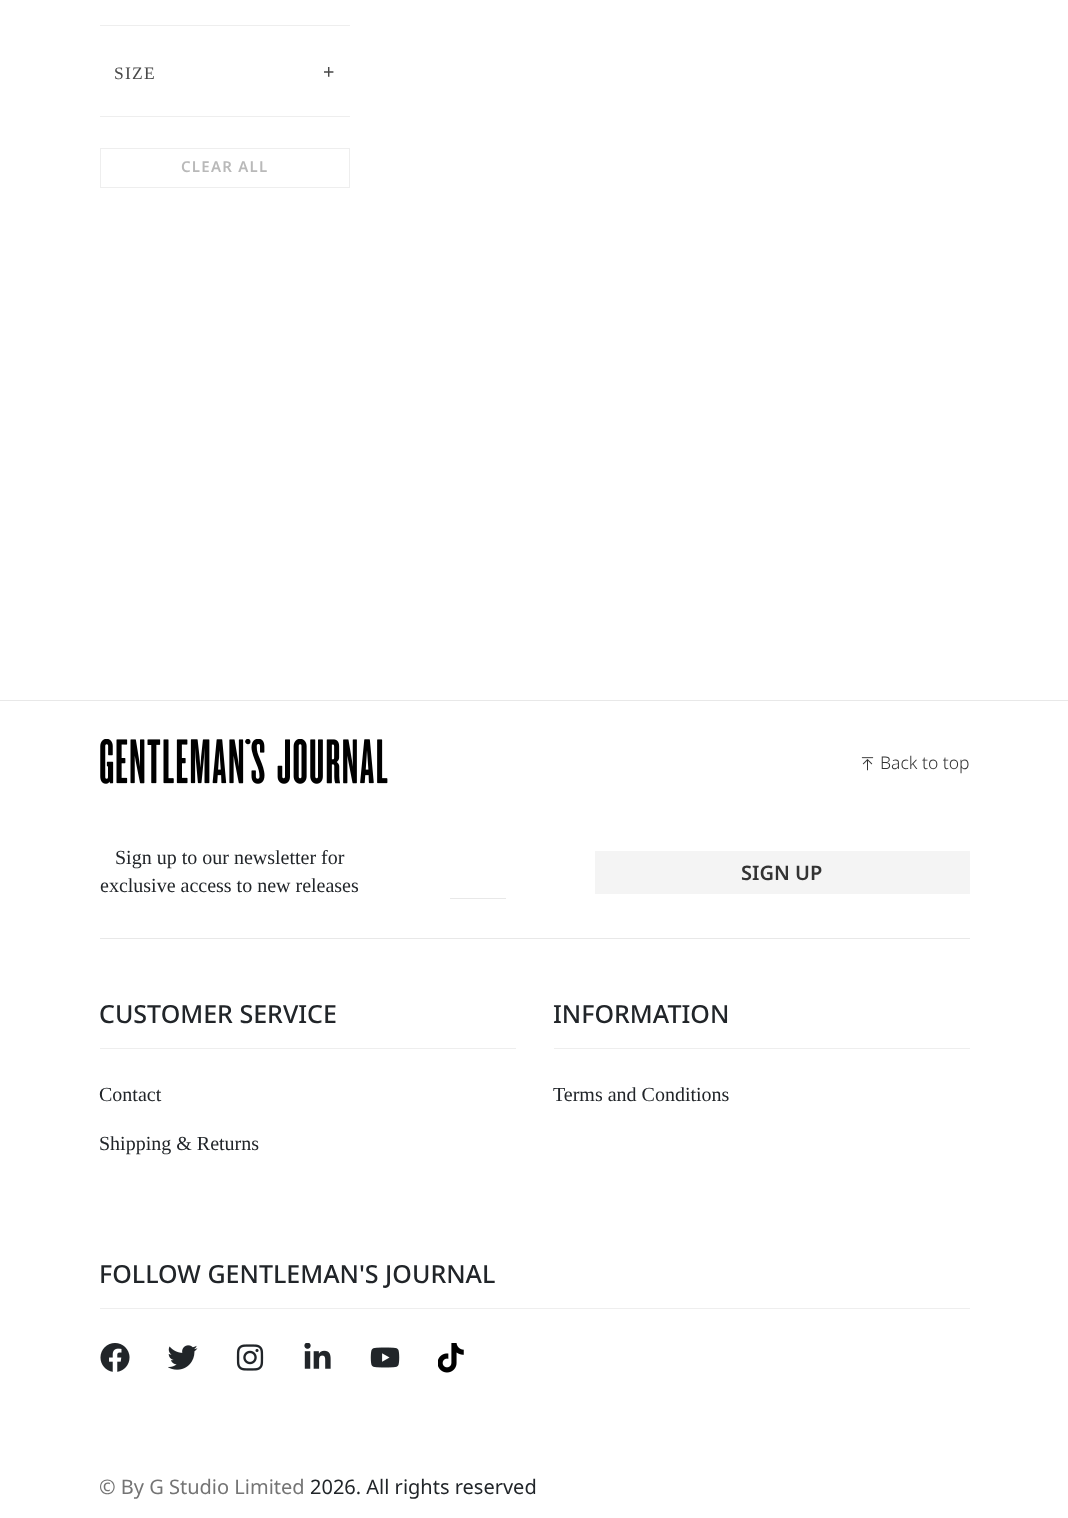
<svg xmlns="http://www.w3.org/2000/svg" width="1068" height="1518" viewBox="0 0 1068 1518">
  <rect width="100%" height="100%" fill="#ffffff"/>
  <rect x="100" y="25" width="250" height="1" fill="#eeeeee"/>
  <rect x="100" y="116" width="250" height="1" fill="#eeeeee"/>
  <text x="114" y="79" font-family="Liberation Serif" font-size="17.5" letter-spacing="1.25" fill="#494949">SIZE</text>
  <text x="323" y="79" font-family="Noto Sans" font-size="20" fill="#494949">+</text>
  <rect x="100.5" y="148.5" width="249" height="39" fill="none" stroke="#eeeeee"/>
  <text x="181" y="172" font-family="Noto Sans" font-size="15" font-weight="600" letter-spacing="1.25" fill="#b9b9b9">CLEAR ALL</text>
  <rect x="0" y="700" width="1068" height="1" fill="#e8e8e8"/>
  <image x="100" y="739" width="288" height="45" href="img1.png"/>
  <image x="861" y="757" width="13" height="14" href="img2.png"/>
  <text x="880" y="769" font-family="Noto Sans" font-size="17.5" font-weight="300" fill="#333333">Back to top</text>
  <rect x="100" y="938" width="870" height="1" fill="#e8e8e8"/>
  <text x="115" y="864" font-family="Liberation Serif" font-size="20" fill="#212529">Sign up to our newsletter for</text>
  <text x="100" y="892" font-family="Liberation Serif" font-size="20" fill="#212529">exclusive access to new releases</text>
  <rect x="595" y="851" width="375" height="43" fill="#f4f4f4"/>
  <text x="741" y="880" font-family="Noto Sans" font-size="20" font-weight="600" fill="#333333">SIGN UP</text>
  <rect x="450" y="898" width="56" height="1" fill="#e8e8e8"/>
  <rect x="100" y="1048" width="416" height="1" fill="#eeeeee"/>
  <text x="99" y="1023" font-family="Noto Sans" font-size="25" font-weight="500" fill="#212529">CUSTOMER SERVICE</text>
  <text x="99" y="1101" font-family="Liberation Serif" font-size="20" fill="#212529">Contact</text>
  <text x="99" y="1150" font-family="Liberation Serif" font-size="20" fill="#212529">Shipping &amp; Returns</text>
  <rect x="554" y="1048" width="416" height="1" fill="#eeeeee"/>
  <text x="553" y="1023" font-family="Noto Sans" font-size="25" font-weight="500" fill="#212529">INFORMATION</text>
  <text x="553" y="1101" font-family="Liberation Serif" font-size="20" fill="#212529">Terms and Conditions</text>
  <rect x="100" y="1308" width="870" height="1" fill="#eeeeee"/>
  <text x="99" y="1283" font-family="Noto Sans" font-size="25" font-weight="500" fill="#212529">FOLLOW GENTLEMAN'S JOURNAL</text>
  <image x="100" y="1343" width="30" height="29" href="img3.png"/>
  <image x="168" y="1345" width="30" height="25" href="img4.png"/>
  <image x="236" y="1344" width="28" height="27" href="img5.png"/>
  <image x="304" y="1343" width="27" height="26" href="img6.png"/>
  <image x="370" y="1347" width="30" height="21" href="img7.png"/>
  <image x="438" y="1343" width="26" height="30" href="img8.png"/>
  <text x="99" y="1494" font-family="Noto Sans" font-size="20" fill="#747474">© By G Studio Limited</text>
  <text x="310" y="1494" font-family="Noto Sans" font-size="20" fill="#212529">2026. All rights reserved</text>
</svg>
